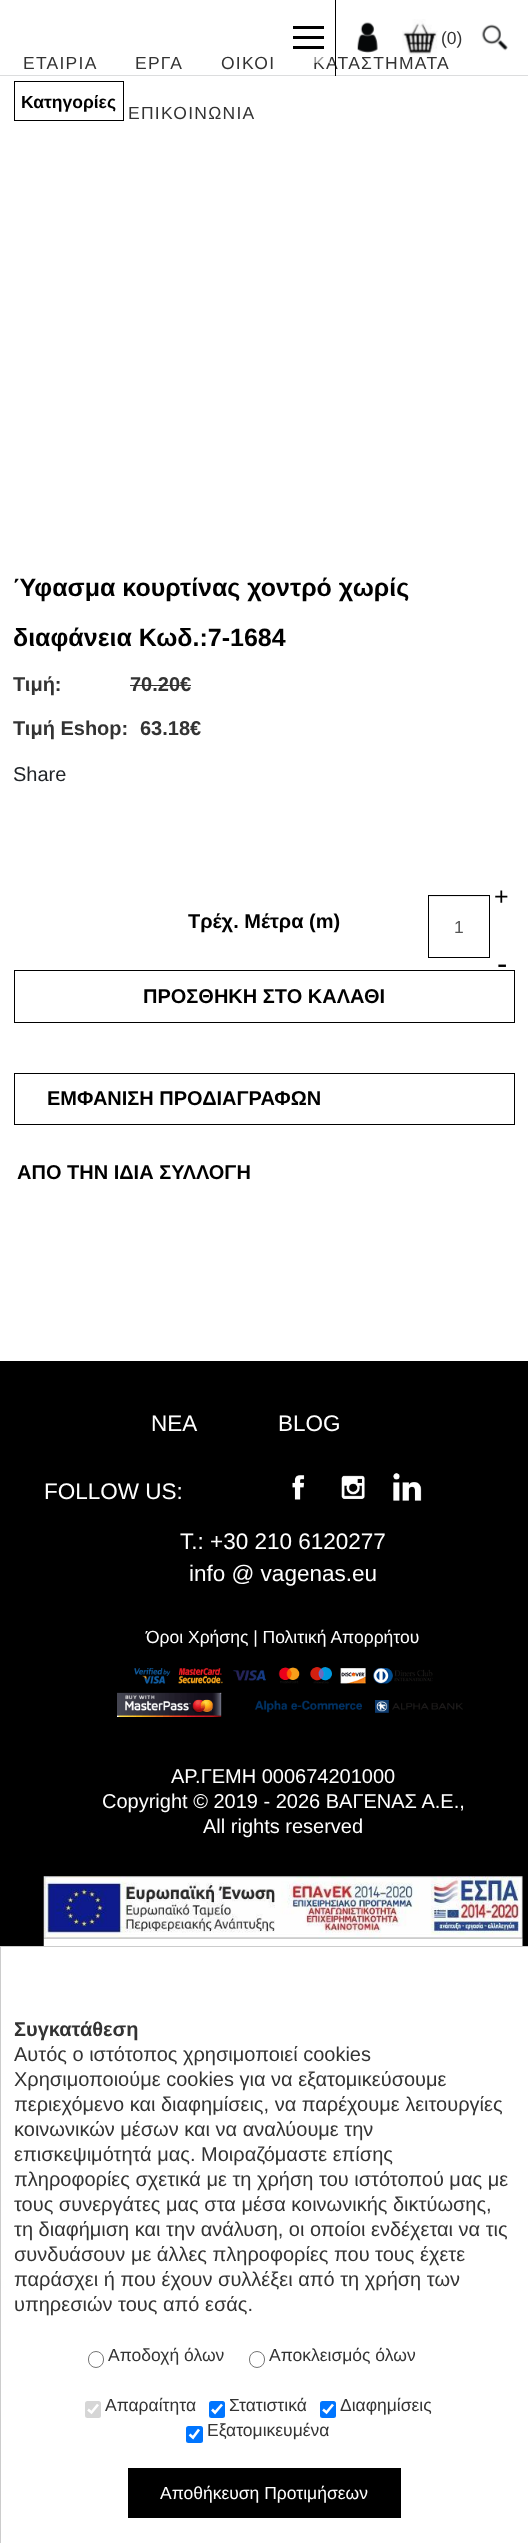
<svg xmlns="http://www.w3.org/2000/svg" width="528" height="2543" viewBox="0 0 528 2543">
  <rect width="100%" height="100%" fill="#ffffff"/>
  <text x="313" y="69" font-family="Liberation Sans" font-size="17.5" letter-spacing="1.25" fill="#333333">ΚΑΤΑΣΤΗΜΑΤΑ</text>
  <rect x="314" y="56" width="16" height="7" fill="#ffffff" fill-opacity="0.5"/>
  <rect x="293" y="26" width="31" height="3" fill="#000000"/>
  <rect x="293" y="36" width="31" height="3" fill="#000000"/>
  <rect x="293" y="46" width="31" height="3" fill="#000000"/>
  <rect x="0" y="75" width="528" height="1" fill="#dcddde"/>
  <rect x="335" y="0" width="1" height="76" fill="#000000"/>
  <image x="357" y="22" width="21" height="31" href="img1.png"/>
  <image x="402" y="19" width="36" height="38" href="img2.png"/>
  <text x="441" y="44" font-family="Liberation Sans" font-size="17.5" fill="#333333">(0)</text>
  <image x="481" y="24" width="27" height="27" href="img3.png"/>
  <text x="23" y="69" font-family="Liberation Sans" font-size="17.5" letter-spacing="1.25" fill="#333333">ΕΤΑΙΡΙΑ</text>
  <text x="135" y="69" font-family="Liberation Sans" font-size="17.5" letter-spacing="1.25" fill="#333333">ΕΡΓΑ</text>
  <text x="221" y="69" font-family="Liberation Sans" font-size="17.5" letter-spacing="1.25" fill="#333333">ΟΙΚΟΙ</text>
  <text x="128" y="119" font-family="Liberation Sans" font-size="17.5" letter-spacing="1.25" fill="#333333">ΕΠΙΚΟΙΝΩΝΙΑ</text>
  <rect x="14.5" y="81.5" width="109" height="39" fill="none" stroke="#000000"/>
  <text x="21" y="108" font-family="Liberation Sans" font-size="17.5" font-weight="bold" fill="#000000">Κατηγορίες</text>
  <text x="13" y="596" font-family="Liberation Sans" font-size="25" font-weight="bold" fill="#000000">Ύφασμα κουρτίνας χοντρό χωρίς</text>
  <text x="13" y="646" font-family="Liberation Sans" font-size="25" font-weight="bold" fill="#000000">διαφάνεια Κωδ.:7-1684</text>
  <text x="13" y="691" font-family="Liberation Sans" font-size="20" font-weight="bold" fill="#333333">Τιμή:</text>
  <text x="130" y="691" font-family="Liberation Sans" font-size="20" font-weight="bold" fill="#333333">70.20€</text>
  <rect x="130" y="685" width="61" height="1" fill="#333333"/>
  <text x="13" y="735" font-family="Liberation Sans" font-size="20" font-weight="bold" fill="#333333">Τιμή Eshop:</text>
  <text x="140" y="735" font-family="Liberation Sans" font-size="20" font-weight="bold" fill="#333333">63.18€</text>
  <text x="13" y="781" font-family="Liberation Sans" font-size="20" fill="#212529">Share</text>
  <text x="188" y="928" font-family="Liberation Sans" font-size="20" font-weight="bold" fill="#000000">Τρέχ. Μέτρα (m)</text>
  <rect x="429" y="896" width="60" height="1" fill="#ececec"/>
  <rect x="428.5" y="895.5" width="61" height="62" fill="none" stroke="#000000"/>
  <text x="454" y="933" font-family="Liberation Sans" font-size="17.5" fill="#555555">1</text>
  <text x="494" y="905" font-family="Liberation Sans" font-size="25" fill="#000000">+</text>
  <text x="497" y="974" font-family="Liberation Sans" font-size="31" fill="#000000">-</text>
  <rect x="14.5" y="970.5" width="500" height="52" fill="none" stroke="#000000"/>
  <text x="143" y="1003" font-family="Liberation Sans" font-size="20" font-weight="bold" fill="#000000">ΠΡΟΣΘΗΚΗ ΣΤΟ ΚΑΛΑΘΙ</text>
  <rect x="14.5" y="1073.5" width="500" height="51" fill="none" stroke="#000000"/>
  <text x="47" y="1105" font-family="Liberation Sans" font-size="20" font-weight="bold" fill="#000000">ΕΜΦΑΝΙΣΗ ΠΡΟΔΙΑΓΡΑΦΩΝ</text>
  <text x="17" y="1179" font-family="Liberation Sans" font-size="20" font-weight="bold" fill="#000000">ΑΠΟ ΤΗΝ ΙΔΙΑ ΣΥΛΛΟΓΗ</text>
  <rect x="0" y="1361" width="528" height="585" fill="#000000"/>
  <text x="151" y="1431" font-family="Liberation Sans" font-size="22.5" fill="#ffffff">ΝΕΑ</text>
  <text x="278" y="1431" font-family="Liberation Sans" font-size="22.5" fill="#ffffff">BLOG</text>
  <text x="44" y="1499" font-family="Liberation Sans" font-size="22.5" fill="#ffffff">FOLLOW US:</text>
  <image x="292" y="1475" width="13" height="25" href="img4.png"/>
  <image x="341" y="1475" width="24" height="24" href="img5.png"/>
  <image x="393" y="1473" width="29" height="28" href="img6.png"/>
  <text x="180" y="1549" font-family="Liberation Sans" font-size="22.5" fill="#ffffff">T.: +30 210 6120277</text>
  <text x="189" y="1581" font-family="Liberation Sans" font-size="22.5" fill="#ffffff">info @ vagenas.eu</text>
  <text x="146" y="1643" font-family="Liberation Sans" font-size="17.5" fill="#ffffff">Όροι Χρήσης | Πολιτική Απορρήτου</text>
  <image x="117" y="1667" width="346" height="50" href="img7.png"/>
  <text x="171" y="1783" font-family="Liberation Sans" font-size="20" fill="#ffffff">ΑΡ.ΓΕΜΗ 000674201000</text>
  <text x="102" y="1808" font-family="Liberation Sans" font-size="20" fill="#ffffff">Copyright © 2019 - 2026 ΒΑΓΕΝΑΣ Α.Ε.,</text>
  <text x="203" y="1833" font-family="Liberation Sans" font-size="20" fill="#ffffff">All rights reserved</text>
  <image x="43" y="1876" width="480" height="63" href="img8.png"/>
  <image x="43" y="1938" width="480" height="8" href="img9.png"/>
  <rect x="0.5" y="1946.5" width="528" height="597" fill="none" stroke="#cccccc"/>
  <text x="14" y="2036" font-family="Liberation Sans" font-size="20" font-weight="bold" fill="#333333">Συγκατάθεση</text>
  <text x="14" y="2061" font-family="Liberation Sans" font-size="20" fill="#333333">Αυτός ο ιστότοπος χρησιμοποιεί cookies</text>
  <text x="14" y="2086" font-family="Liberation Sans" font-size="20" fill="#333333">Χρησιμοποιούμε cookies για να εξατομικεύσουμε</text>
  <text x="14" y="2111" font-family="Liberation Sans" font-size="20" fill="#333333">περιεχόμενο και διαφημίσεις, να παρέχουμε λειτουργίες</text>
  <text x="14" y="2136" font-family="Liberation Sans" font-size="20" fill="#333333">κοινωνικών μέσων και να αναλύουμε την</text>
  <text x="14" y="2161" font-family="Liberation Sans" font-size="20" fill="#333333">επισκεψιμότητά μας. Μοιραζόμαστε επίσης</text>
  <text x="14" y="2186" font-family="Liberation Sans" font-size="20" fill="#333333">πληροφορίες σχετικά με τη χρήση του ιστότοπού μας με</text>
  <text x="14" y="2211" font-family="Liberation Sans" font-size="20" fill="#333333">τους συνεργάτες μας στα μέσα κοινωνικής δικτύωσης,</text>
  <text x="14" y="2236" font-family="Liberation Sans" font-size="20" fill="#333333">τη διαφήμιση και την ανάλυση, οι οποίοι ενδέχεται να τις</text>
  <text x="14" y="2261" font-family="Liberation Sans" font-size="20" fill="#333333">συνδυάσουν με άλλες πληροφορίες που τους έχετε</text>
  <text x="14" y="2286" font-family="Liberation Sans" font-size="20" fill="#333333">παράσχει ή που έχουν συλλέξει από τη χρήση των</text>
  <text x="14" y="2311" font-family="Liberation Sans" font-size="20" fill="#333333">υπηρεσιών τους από εσάς.</text>
  <rect x="88.5" y="2351.5" width="15" height="16" rx="7.5" fill="none" stroke="#767676"/>
  <text x="108" y="2361" font-family="Liberation Sans" font-size="17.5" fill="#333333">Αποδοχή όλων</text>
  <rect x="249.5" y="2351.5" width="15" height="16" rx="7.5" fill="none" stroke="#767676"/>
  <text x="269" y="2361" font-family="Liberation Sans" font-size="17.5" fill="#333333">Αποκλεισμός όλων</text>
  <rect x="85" y="2401" width="16" height="17" rx="2.5" fill="#d6d6d6"/>
  <path d="M88 2409.5L91.5 2412.5L98 2404.5" fill="none" stroke="#ffffff" stroke-width="2.6"/>
  <text x="105" y="2411" font-family="Liberation Sans" font-size="17.5" fill="#333333">Απαραίτητα</text>
  <rect x="209" y="2401" width="16" height="17" rx="2.5" fill="#0075ff"/>
  <path d="M212 2409.5L215 2412.5L222 2404.5" fill="none" stroke="#ffffff" stroke-width="2.6"/>
  <text x="229" y="2411" font-family="Liberation Sans" font-size="17.5" fill="#333333">Στατιστικά</text>
  <rect x="320" y="2401" width="16" height="17" rx="2.5" fill="#0075ff"/>
  <path d="M323 2409.5L326.5 2412.5L333 2404.5" fill="none" stroke="#ffffff" stroke-width="2.6"/>
  <text x="340" y="2411" font-family="Liberation Sans" font-size="17.5" fill="#333333">Διαφημίσεις</text>
  <rect x="186" y="2426" width="17" height="17" rx="2.5" fill="#0075ff"/>
  <path d="M189.5 2434.5L193 2437.5L199 2429.5" fill="none" stroke="#ffffff" stroke-width="2.6"/>
  <text x="207" y="2436" font-family="Liberation Sans" font-size="17.5" fill="#333333">Εξατομικευμένα</text>
  <rect x="128" y="2468" width="273" height="50" fill="#000000"/>
  <text x="160" y="2499" font-family="Liberation Sans" font-size="17.5" fill="#ffffff">Αποθήκευση Προτιμήσεων</text>
</svg>
